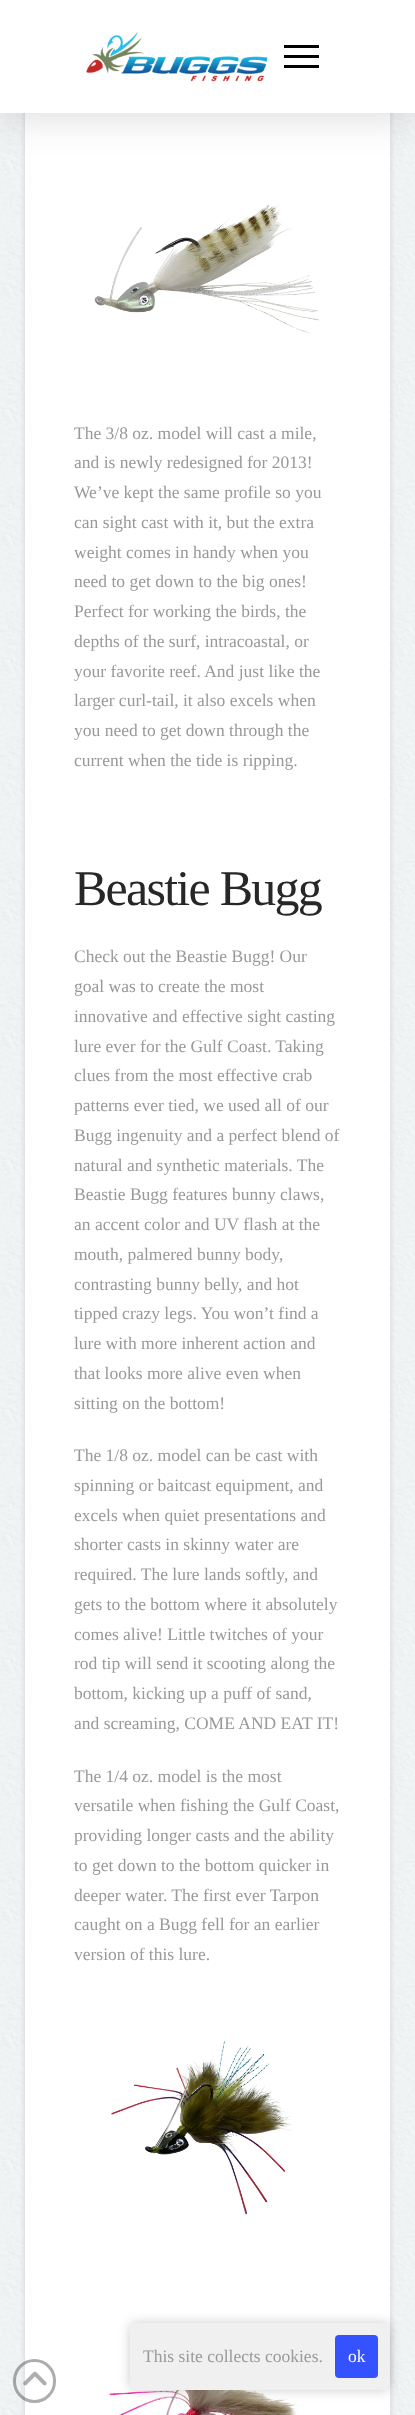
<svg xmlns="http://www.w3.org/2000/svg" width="415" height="2415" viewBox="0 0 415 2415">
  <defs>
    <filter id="blur1" x="-50%" y="-200%" width="200%" height="500%"><feGaussianBlur stdDeviation="3"/></filter>
    <filter id="blur2" x="-50%" y="-200%" width="200%" height="500%"><feGaussianBlur stdDeviation="20"/></filter>
    <filter id="blur3" x="-50%" y="-200%" width="200%" height="500%"><feGaussianBlur stdDeviation="6"/></filter>
  </defs>
  <rect width="100%" height="100%" fill="#ffffff"/>
  <image x="0" y="113" width="415" height="2302" href="img1.png"/>
  <rect x="25" y="-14" width="365" height="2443" rx="5" fill="#000000" fill-opacity="0.13" filter="url(#blur1)"/>
  <rect x="25" y="113" width="365" height="2302" fill="#ffffff"/>
  <rect x="0" y="3" width="415" height="112" fill="#000000" fill-opacity="0.15" filter="url(#blur2)"/>
  <rect x="0" y="0" width="415" height="113" fill="#ffffff"/>
  <image x="86" y="31" width="182" height="51" href="img2.png"/>
  <rect x="284" y="45" width="35" height="3" fill="#000000"/>
  <rect x="284" y="55" width="35" height="3" fill="#000000"/>
  <rect x="284" y="65" width="35" height="3" fill="#000000"/>
  <image x="94" y="204" width="226" height="130" href="img3.png"/>
  <text x="74" y="439" font-family="Liberation Serif" font-size="17.5" fill="#999999">The 3/8 oz. model will cast a mile,</text>
  <text x="74" y="468" font-family="Liberation Serif" font-size="17.5" fill="#999999">and is newly redesigned for 2013!</text>
  <text x="74" y="498" font-family="Liberation Serif" font-size="17.5" fill="#999999">We’ve kept the same profile so you</text>
  <text x="74" y="528" font-family="Liberation Serif" font-size="17.5" fill="#999999">can sight cast with it, but the extra</text>
  <text x="74" y="558" font-family="Liberation Serif" font-size="17.5" fill="#999999">weight comes in handy when you</text>
  <text x="74" y="587" font-family="Liberation Serif" font-size="17.5" fill="#999999">need to get down to the big ones!</text>
  <text x="74" y="617" font-family="Liberation Serif" font-size="17.5" fill="#999999">Perfect for working the birds, the</text>
  <text x="74" y="647" font-family="Liberation Serif" font-size="17.5" fill="#999999">depths of the surf, intracoastal, or</text>
  <text x="74" y="677" font-family="Liberation Serif" font-size="17.5" fill="#999999">your favorite reef. And just like the</text>
  <text x="74" y="706" font-family="Liberation Serif" font-size="17.5" fill="#999999">larger curl-tail, it also excels when</text>
  <text x="74" y="736" font-family="Liberation Serif" font-size="17.5" fill="#999999">you need to get down through the</text>
  <text x="74" y="766" font-family="Liberation Serif" font-size="17.5" fill="#999999">current when the tide is ripping.</text>
  <text x="74" y="905" font-family="Liberation Serif" font-size="50" letter-spacing="-1.75" fill="#272727">Beastie Bugg</text>
  <text x="74" y="962" font-family="Liberation Serif" font-size="17.5" fill="#999999">Check out the Beastie Bugg! Our</text>
  <text x="74" y="992" font-family="Liberation Serif" font-size="17.5" fill="#999999">goal was to create the most</text>
  <text x="74" y="1022" font-family="Liberation Serif" font-size="17.5" fill="#999999">innovative and effective sight casting</text>
  <text x="74" y="1052" font-family="Liberation Serif" font-size="17.5" fill="#999999">lure ever for the Gulf Coast. Taking</text>
  <text x="74" y="1081" font-family="Liberation Serif" font-size="17.5" fill="#999999">clues from the most effective crab</text>
  <text x="74" y="1111" font-family="Liberation Serif" font-size="17.5" fill="#999999">patterns ever tied, we used all of our</text>
  <text x="74" y="1141" font-family="Liberation Serif" font-size="17.5" fill="#999999">Bugg ingenuity and a perfect blend of</text>
  <text x="74" y="1171" font-family="Liberation Serif" font-size="17.5" fill="#999999">natural and synthetic materials. The</text>
  <text x="74" y="1200" font-family="Liberation Serif" font-size="17.5" fill="#999999">Beastie Bugg features bunny claws,</text>
  <text x="74" y="1230" font-family="Liberation Serif" font-size="17.5" fill="#999999">an accent color and UV flash at the</text>
  <text x="74" y="1260" font-family="Liberation Serif" font-size="17.5" fill="#999999">mouth, palmered bunny body,</text>
  <text x="74" y="1290" font-family="Liberation Serif" font-size="17.5" fill="#999999">contrasting bunny belly, and hot</text>
  <text x="74" y="1319" font-family="Liberation Serif" font-size="17.5" fill="#999999">tipped crazy legs. You won’t find a</text>
  <text x="74" y="1349" font-family="Liberation Serif" font-size="17.5" fill="#999999">lure with more inherent action and</text>
  <text x="74" y="1379" font-family="Liberation Serif" font-size="17.5" fill="#999999">that looks more alive even when</text>
  <text x="74" y="1409" font-family="Liberation Serif" font-size="17.5" fill="#999999">sitting on the bottom!</text>
  <text x="74" y="1461" font-family="Liberation Serif" font-size="17.5" fill="#999999">The 1/8 oz. model can be cast with</text>
  <text x="74" y="1491" font-family="Liberation Serif" font-size="17.5" fill="#999999">spinning or baitcast equipment, and</text>
  <text x="74" y="1521" font-family="Liberation Serif" font-size="17.5" fill="#999999">excels when quiet presentations and</text>
  <text x="74" y="1550" font-family="Liberation Serif" font-size="17.5" fill="#999999">shorter casts in skinny water are</text>
  <text x="74" y="1580" font-family="Liberation Serif" font-size="17.5" fill="#999999">required. The lure lands softly, and</text>
  <text x="74" y="1610" font-family="Liberation Serif" font-size="17.5" fill="#999999">gets to the bottom where it absolutely</text>
  <text x="74" y="1640" font-family="Liberation Serif" font-size="17.5" fill="#999999">comes alive! Little twitches of your</text>
  <text x="74" y="1669" font-family="Liberation Serif" font-size="17.5" fill="#999999">rod tip will send it scooting along the</text>
  <text x="74" y="1699" font-family="Liberation Serif" font-size="17.5" fill="#999999">bottom, kicking up a puff of sand,</text>
  <text x="74" y="1729" font-family="Liberation Serif" font-size="17.5" fill="#999999">and screaming, COME AND EAT IT!</text>
  <text x="74" y="1782" font-family="Liberation Serif" font-size="17.5" fill="#999999">The 1/4 oz. model is the most</text>
  <text x="74" y="1811" font-family="Liberation Serif" font-size="17.5" fill="#999999">versatile when fishing the Gulf Coast,</text>
  <text x="74" y="1841" font-family="Liberation Serif" font-size="17.5" fill="#999999">providing longer casts and the ability</text>
  <text x="74" y="1871" font-family="Liberation Serif" font-size="17.5" fill="#999999">to get down to the bottom quicker in</text>
  <text x="74" y="1901" font-family="Liberation Serif" font-size="17.5" fill="#999999">deeper water. The first ever Tarpon</text>
  <text x="74" y="1930" font-family="Liberation Serif" font-size="17.5" fill="#999999">caught on a Bugg fell for an earlier</text>
  <text x="74" y="1960" font-family="Liberation Serif" font-size="17.5" fill="#999999">version of this lure.</text>
  <image x="111" y="2041" width="181" height="174" href="img4.png"/>
  <image x="109" y="2355" width="189" height="60" href="img5.png"/>
  <rect x="14.5" y="2360.5" width="40" height="41" rx="20" fill="none" stroke="#272727" stroke-opacity="0.38" stroke-width="3"/>
  <image x="23" y="2371" width="24" height="15" href="img6.png"/>
  <rect x="130" y="2323" width="260" height="67" rx="6" fill="#000000" fill-opacity="0.2" filter="url(#blur3)"/>
  <rect x="130" y="2323" width="260" height="67" rx="6" fill="#f0f0f0"/>
  <text x="143" y="2362" font-family="Liberation Serif" font-size="17.5" fill="#999999">This site collects cookies.</text>
  <rect x="335" y="2335" width="43" height="43" rx="4" fill="#3452ff"/>
  <text x="348" y="2362" font-family="Liberation Serif" font-size="17.5" fill="#ffffff">ok</text>
</svg>
